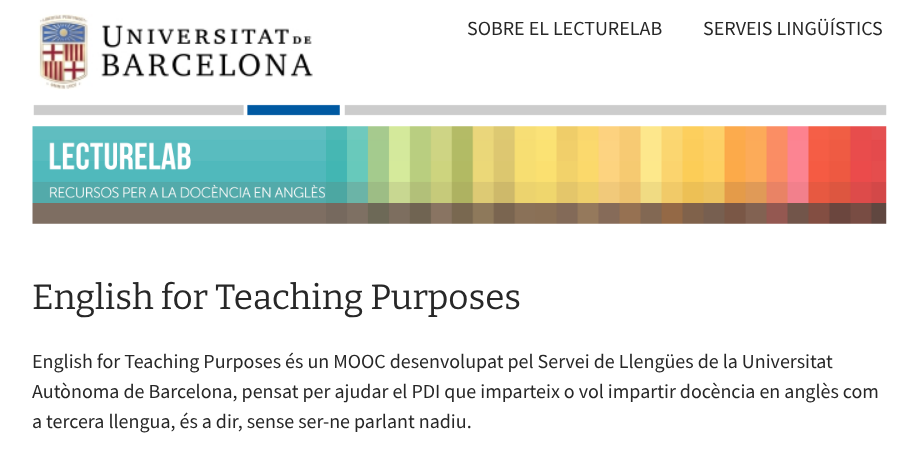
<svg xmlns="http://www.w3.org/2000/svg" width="918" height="471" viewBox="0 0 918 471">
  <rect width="100%" height="100%" fill="#ffffff"/>
  <image x="38" y="14" width="275" height="76" href="img1.png"/>
  <text x="467" y="35" font-family="Source Sans Pro" font-size="20" fill="#272727">SOBRE EL LECTURELAB</text>
  <text x="703" y="35" font-family="Source Sans Pro" font-size="20" fill="#272727">SERVEIS LINGÜÍSTICS</text>
  <image x="33" y="104" width="854" height="12" href="img2.png"/>
  <image x="32" y="126" width="855" height="98" href="img3.png"/>
  <text x="32" y="309" font-family="Bitter" font-size="35" fill="#272727">English for Teaching Purposes</text>
  <text x="32" y="368" font-family="Source Sans Pro" font-size="20" fill="#272727">English for Teaching Purposes és un MOOC desenvolupat pel Servei de Llengües de la Universitat</text>
  <text x="32" y="398" font-family="Source Sans Pro" font-size="20" fill="#272727">Autònoma de Barcelona, pensat per ajudar el PDI que imparteix o vol impartir docència en anglès com</text>
  <text x="32" y="428" font-family="Source Sans Pro" font-size="20" fill="#272727">a tercera llengua, és a dir, sense ser-ne parlant nadiu.</text>
</svg>
